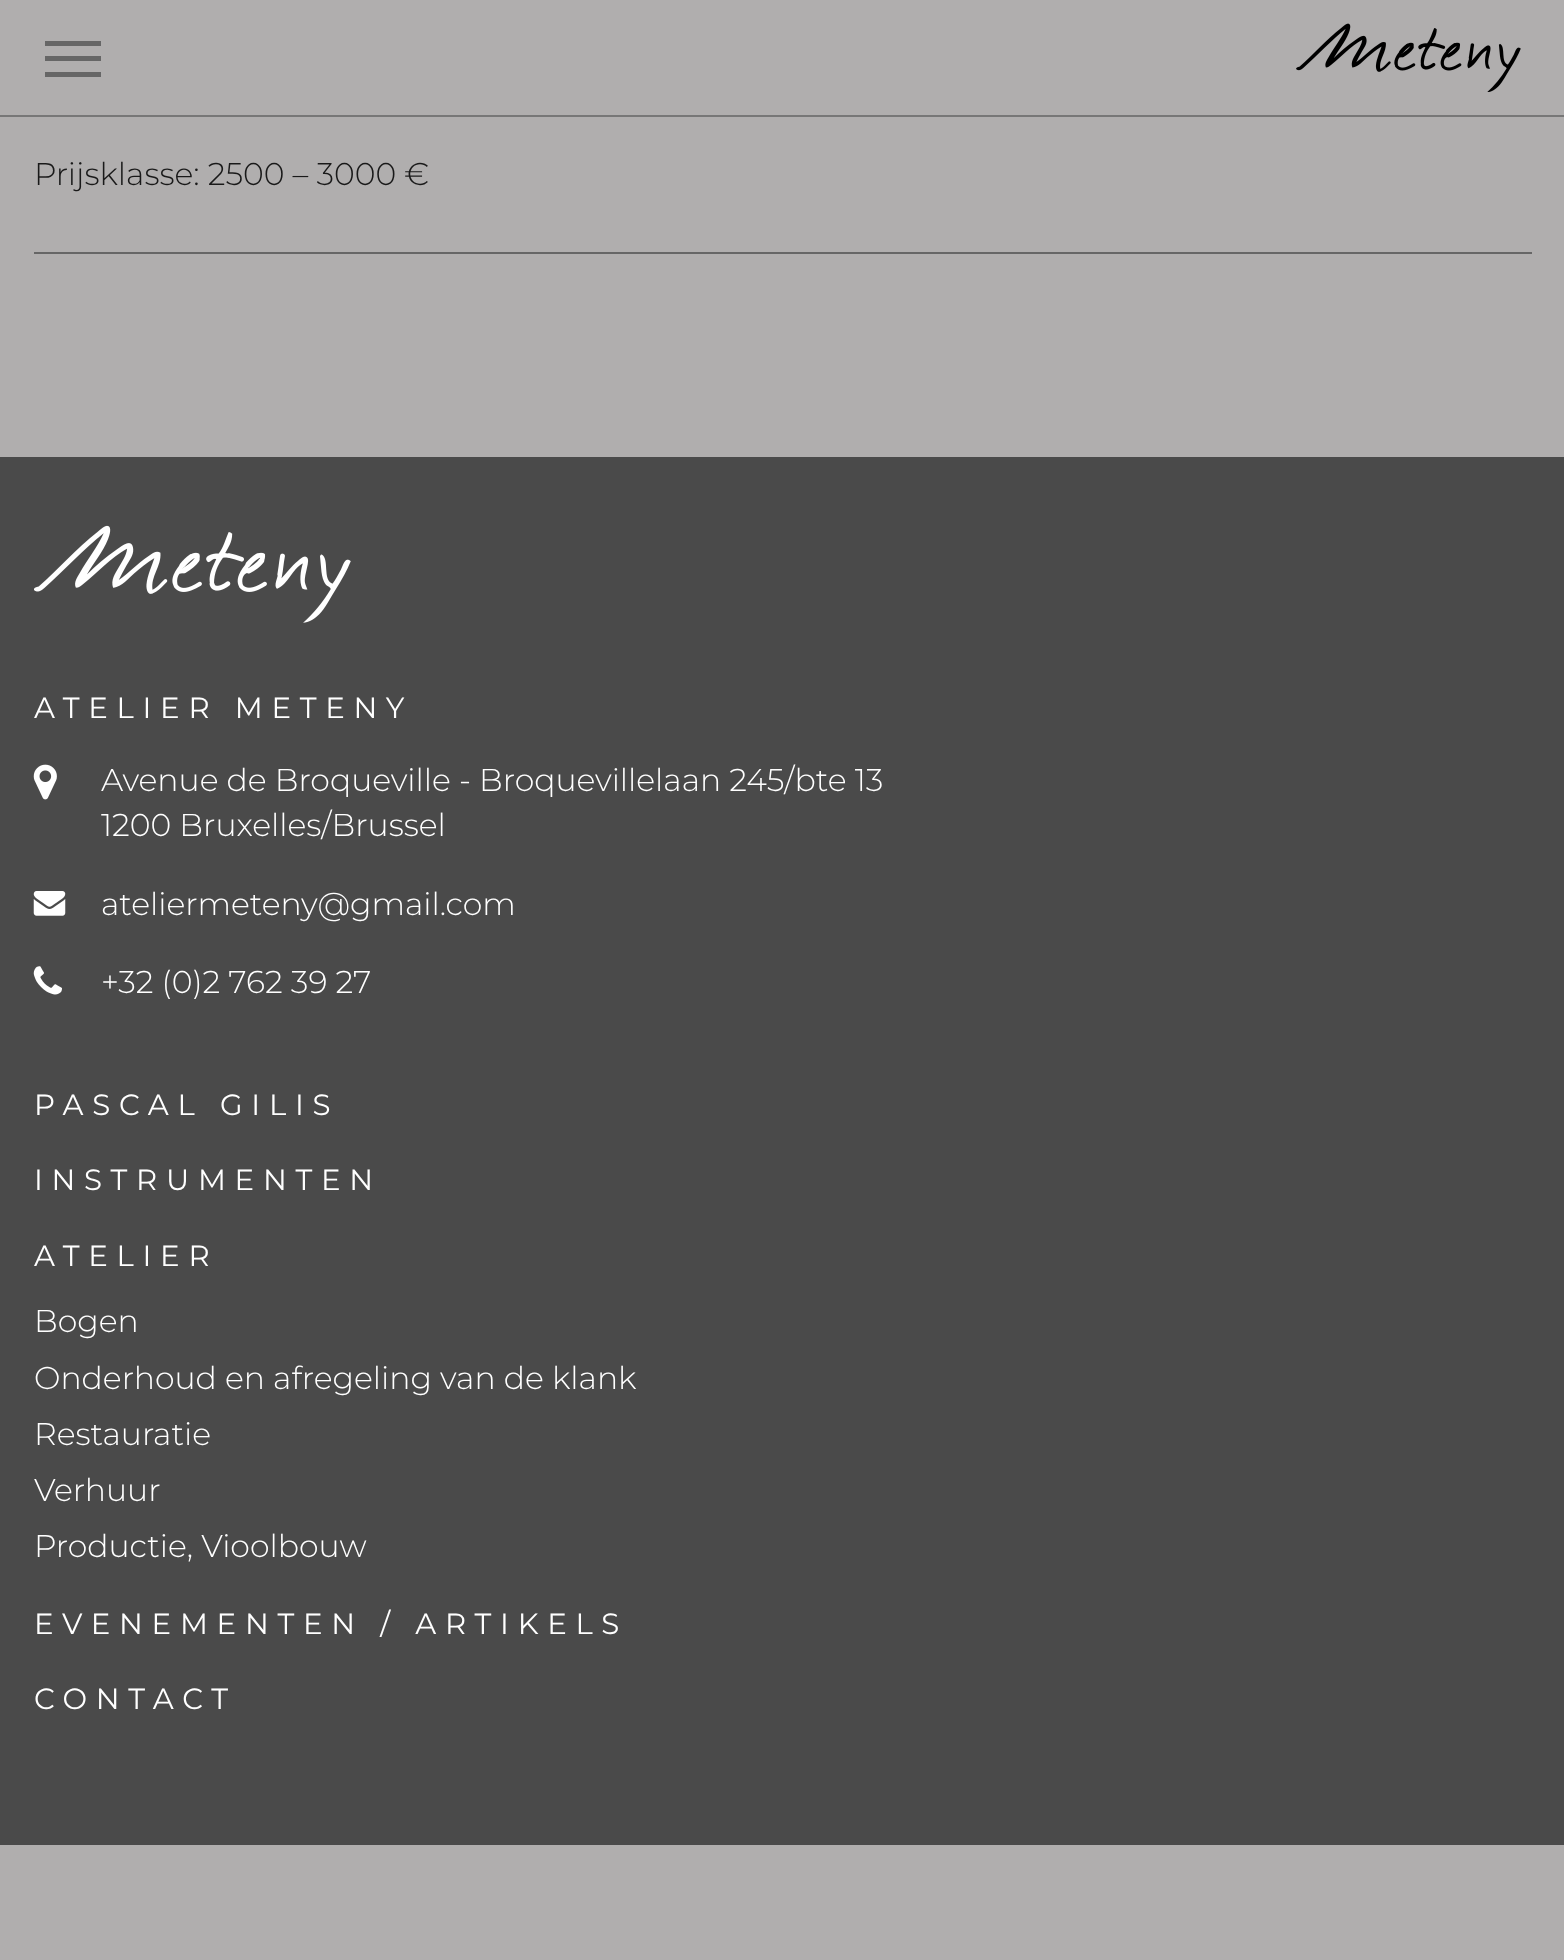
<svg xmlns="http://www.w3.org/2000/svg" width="1564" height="1960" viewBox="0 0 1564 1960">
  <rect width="100%" height="100%" fill="#b0aeae"/>
  <rect x="0" y="115" width="1564" height="2" fill="#777777"/>
  <rect x="45" y="41" width="56" height="5" fill="#666666"/>
  <rect x="45" y="56" width="56" height="5" fill="#666666"/>
  <rect x="45" y="72" width="56" height="5" fill="#666666"/>
  <image x="1296" y="23" width="225" height="69" href="img1.png"/>
  <rect x="34" y="252" width="1498" height="2" fill="#666666"/>
  <text x="34" y="185" font-family="Montserrat" font-size="31.5" font-weight="300" fill="#191919">Prijsklasse: 2500 – 3000 €</text>
  <rect x="0" y="457" width="1564" height="1388" fill="#4a4a4a"/>
  <image x="34" y="525" width="317" height="98" href="img2.png"/>
  <text x="34" y="718" font-family="Montserrat" font-size="29.25" letter-spacing="8.75" fill="#ffffff">ATELIER METENY</text>
  <image x="33" y="764" width="24" height="36" href="img3.png"/>
  <text x="101" y="791" font-family="Montserrat" font-size="31.5" font-weight="300" fill="#ffffff">Avenue de Broqueville - Broquevillelaan 245/bte 13</text>
  <text x="101" y="836" font-family="Montserrat" font-size="31.5" font-weight="300" fill="#ffffff">1200 Bruxelles/Brussel</text>
  <image x="33" y="891" width="33" height="25" href="img4.png"/>
  <text x="101" y="915" font-family="Montserrat" font-size="31.5" font-weight="300" fill="#ffffff">ateliermeteny@gmail.com</text>
  <image x="33" y="966" width="29" height="29" href="img5.png"/>
  <text x="101" y="993" font-family="Montserrat" font-size="31.5" font-weight="300" fill="#ffffff">+32 (0)2 762 39 27</text>
  <text x="34" y="1115" font-family="Montserrat" font-size="29.25" letter-spacing="8.75" fill="#ffffff">PASCAL GILIS</text>
  <text x="34" y="1190" font-family="Montserrat" font-size="29.25" letter-spacing="8.75" fill="#ffffff">INSTRUMENTEN</text>
  <text x="34" y="1266" font-family="Montserrat" font-size="29.25" letter-spacing="8.75" fill="#ffffff">ATELIER</text>
  <text x="34" y="1332" font-family="Montserrat" font-size="31.5" font-weight="300" fill="#ffffff">Bogen</text>
  <text x="34" y="1389" font-family="Montserrat" font-size="31.5" font-weight="300" fill="#ffffff">Onderhoud en afregeling van de klank</text>
  <text x="34" y="1445" font-family="Montserrat" font-size="31.5" font-weight="300" fill="#ffffff">Restauratie</text>
  <text x="34" y="1501" font-family="Montserrat" font-size="31.5" font-weight="300" fill="#ffffff">Verhuur</text>
  <text x="34" y="1557" font-family="Montserrat" font-size="31.5" font-weight="300" fill="#ffffff">Productie, Vioolbouw</text>
  <text x="34" y="1634" font-family="Montserrat" font-size="29.25" letter-spacing="8.75" fill="#ffffff">EVENEMENTEN / ARTIKELS</text>
  <text x="34" y="1709" font-family="Montserrat" font-size="29.25" letter-spacing="8.75" fill="#ffffff">CONTACT</text>
</svg>
